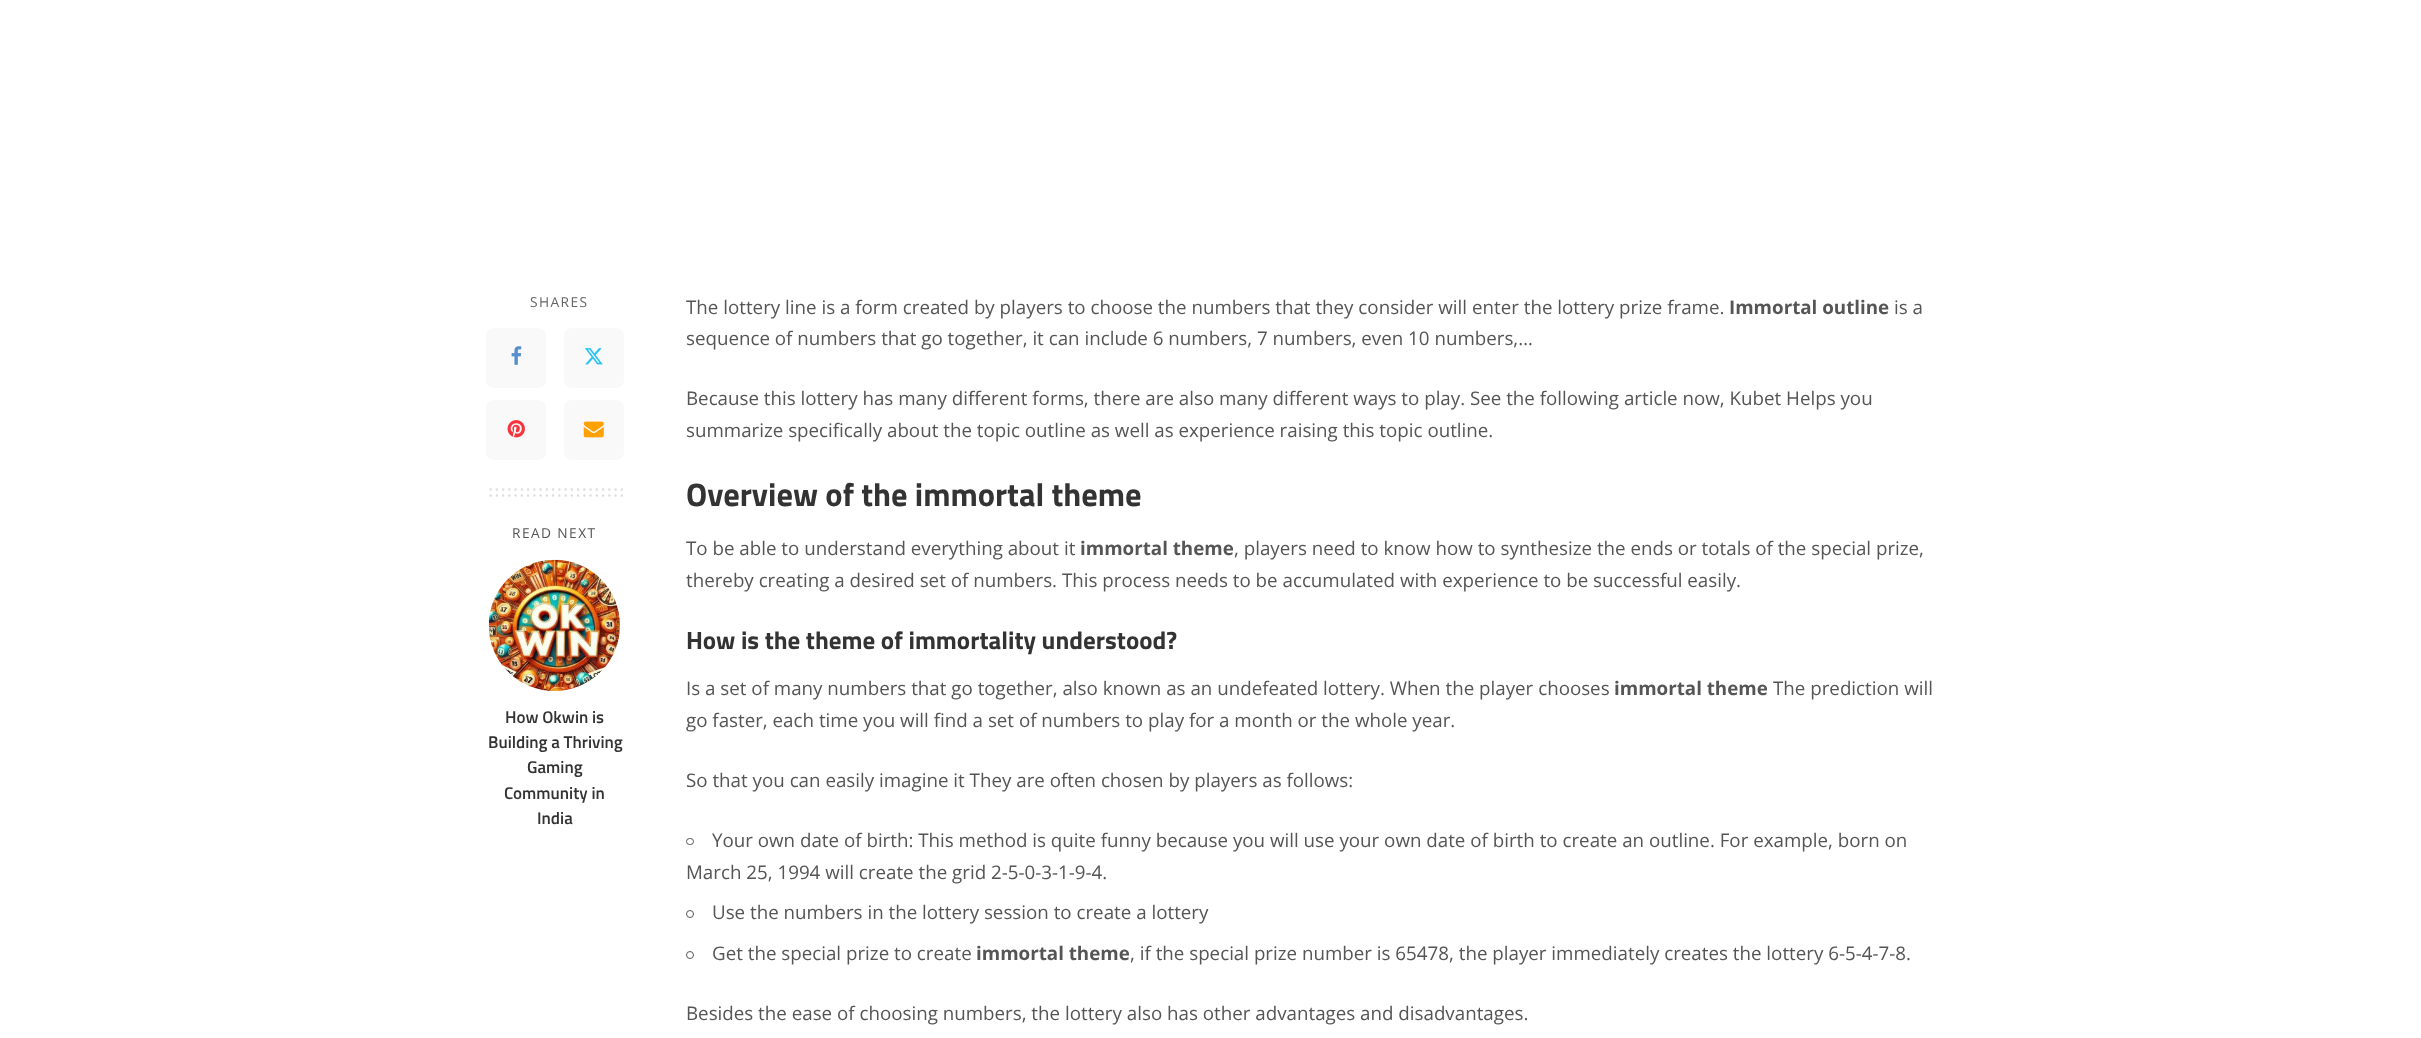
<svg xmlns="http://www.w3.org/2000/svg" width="2421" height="1038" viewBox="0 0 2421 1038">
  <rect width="100%" height="100%" fill="#ffffff"/>
  <text x="530" y="307" font-family="Open Sans" font-size="13.75" letter-spacing="1.4" fill="#666666">SHARES</text>
  <rect x="486" y="328" width="60" height="60" rx="8" fill="#f9f9f9"/>
  <image x="511" y="346" width="11" height="19" href="img1.png"/>
  <rect x="564" y="328" width="60" height="60" rx="8" fill="#f9f9f9"/>
  <image x="584" y="348" width="19" height="17" href="img2.png"/>
  <rect x="486" y="400" width="60" height="60" rx="8" fill="#f9f9f9"/>
  <image x="507" y="420" width="18" height="18" href="img3.png"/>
  <rect x="564" y="400" width="60" height="60" rx="8" fill="#f9f9f9"/>
  <image x="583" y="421" width="21" height="17" href="img4.png"/>
  <path d="M490.6 489.4H622.1" fill="none" stroke="#dddddd" stroke-width="2.5" stroke-linecap="round" stroke-dasharray="0 6.25"/>
  <path d="M490.6 495.6H622.1" fill="none" stroke="#dddddd" stroke-width="2.5" stroke-linecap="round" stroke-dasharray="0 6.25"/>
  <text x="512" y="538" font-family="Open Sans" font-size="13.75" letter-spacing="1.4" fill="#555555">READ NEXT</text>
  <image x="488" y="559" width="132" height="132" href="img5.png"/>
  <text x="505" y="723" font-family="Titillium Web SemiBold" font-size="17" font-weight="600" fill="#333333">How Okwin is</text>
  <text x="488" y="748" font-family="Titillium Web SemiBold" font-size="17" font-weight="600" fill="#333333">Building a Thriving</text>
  <text x="527" y="773" font-family="Titillium Web SemiBold" font-size="17" font-weight="600" fill="#333333">Gaming</text>
  <text x="504" y="799" font-family="Titillium Web SemiBold" font-size="17" font-weight="600" fill="#333333">Community in</text>
  <text x="537" y="824" font-family="Titillium Web SemiBold" font-size="17" font-weight="600" fill="#333333">India</text>
  <text x="686" y="314" font-family="Open Sans" font-size="18.75" fill="#555555">The lottery line is a form created by players to choose the numbers that they consider will enter the lottery prize frame.</text>
  <text x="1729" y="314" font-family="Open Sans" font-size="18.75" font-weight="bold" fill="#555555">Immortal outline</text>
  <text x="1894" y="314" font-family="Open Sans" font-size="18.75" fill="#555555">is a</text>
  <text x="686" y="345" font-family="Open Sans" font-size="18.75" fill="#555555">sequence of numbers that go together, it can include 6 numbers, 7 numbers, even 10 numbers,…</text>
  <text x="686" y="405" font-family="Open Sans" font-size="18.75" fill="#555555">Because this lottery has many different forms, there are also many different ways to play. See the following article now, Kubet Helps you</text>
  <text x="686" y="437" font-family="Open Sans" font-size="18.75" fill="#555555">summarize specifically about the topic outline as well as experience raising this topic outline.</text>
  <text x="686" y="506" font-family="Titillium Web" font-size="32.5" font-weight="bold" fill="#333333">Overview of the immortal theme</text>
  <text x="686" y="555" font-family="Open Sans" font-size="18.75" fill="#555555">To be able to understand everything about it</text>
  <text x="1080" y="555" font-family="Open Sans" font-size="18.75" font-weight="bold" fill="#555555">immortal theme</text>
  <text x="1234" y="555" font-family="Open Sans" font-size="18.75" fill="#555555">, players need to know how to synthesize the ends or totals of the special prize,</text>
  <text x="686" y="587" font-family="Open Sans" font-size="18.75" fill="#555555">thereby creating a desired set of numbers. This process needs to be accumulated with experience to be successful easily.</text>
  <text x="686" y="649" font-family="Titillium Web" font-size="25" font-weight="bold" fill="#333333">How is the theme of immortality understood?</text>
  <text x="686" y="695" font-family="Open Sans" font-size="18.75" fill="#555555">Is a set of many numbers that go together, also known as an undefeated lottery. When the player chooses</text>
  <text x="1614" y="695" font-family="Open Sans" font-size="18.75" font-weight="bold" fill="#555555">immortal theme</text>
  <text x="1773" y="695" font-family="Open Sans" font-size="18.75" fill="#555555">The prediction will</text>
  <text x="686" y="727" font-family="Open Sans" font-size="18.75" fill="#555555">go faster, each time you will find a set of numbers to play for a month or the whole year.</text>
  <text x="686" y="787" font-family="Open Sans" font-size="18.75" fill="#555555">So that you can easily imagine it They are often chosen by players as follows:</text>
  <rect x="686.5" y="838.5" width="7" height="6" rx="3" fill="none" stroke="#555555"/>
  <text x="712" y="847" font-family="Open Sans" font-size="18.75" fill="#555555">Your own date of birth: This method is quite funny because you will use your own date of birth to create an outline. For example, born on</text>
  <text x="686" y="879" font-family="Open Sans" font-size="18.75" fill="#555555">March 25, 1994 will create the grid 2-5-0-3-1-9-4.</text>
  <circle cx="690" cy="914" r="3.5" fill="none" stroke="#555555"/>
  <text x="712" y="919" font-family="Open Sans" font-size="18.75" fill="#555555">Use the numbers in the lottery session to create a lottery</text>
  <circle cx="690" cy="955" r="3.5" fill="none" stroke="#555555"/>
  <text x="712" y="960" font-family="Open Sans" font-size="18.75" fill="#555555">Get the special prize to create</text>
  <text x="976" y="960" font-family="Open Sans" font-size="18.75" font-weight="bold" fill="#555555">immortal theme</text>
  <text x="1130" y="960" font-family="Open Sans" font-size="18.75" fill="#555555">, if the special prize number is 65478, the player immediately creates the lottery 6-5-4-7-8.</text>
  <text x="686" y="1020" font-family="Open Sans" font-size="18.75" fill="#555555">Besides the ease of choosing numbers, the lottery also has other advantages and disadvantages.</text>
</svg>
